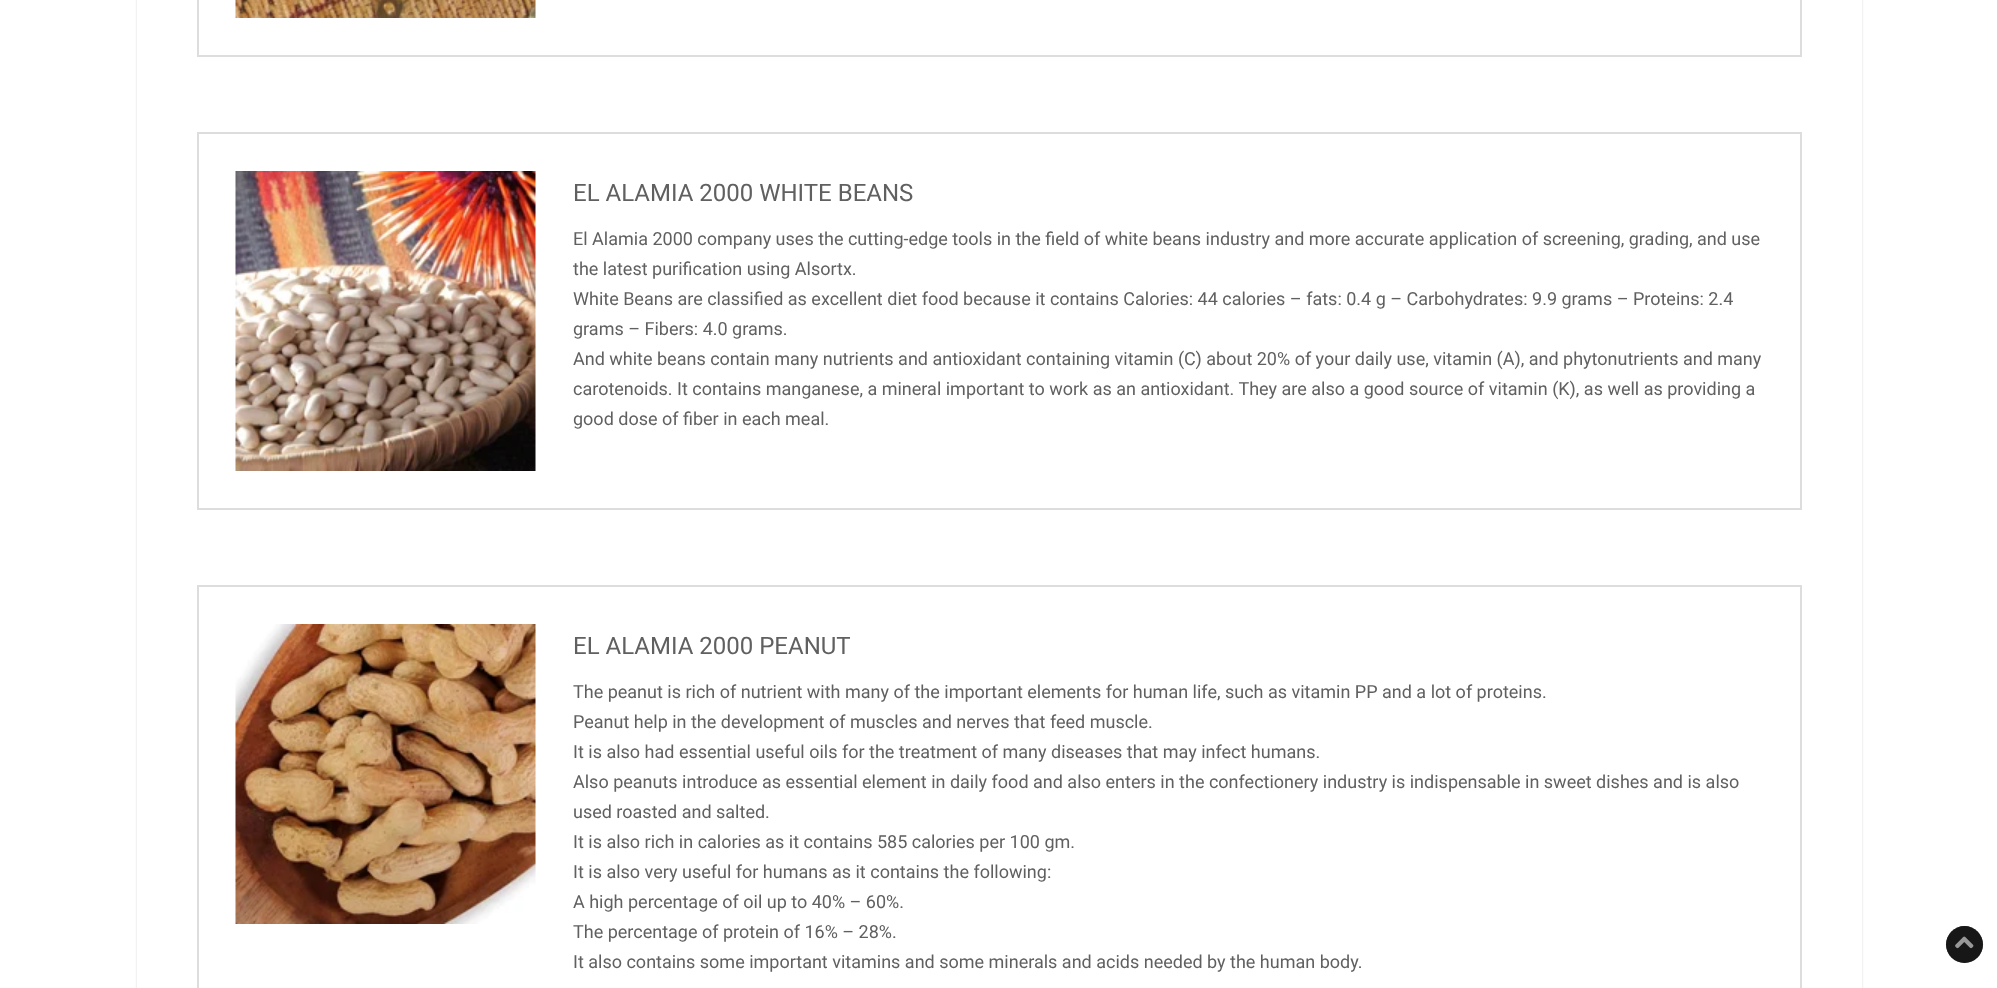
<svg xmlns="http://www.w3.org/2000/svg" width="1997" height="988" viewBox="0 0 1997 988">
  <defs>
    <filter id="blur1" x="-50%" y="-200%" width="200%" height="500%"><feGaussianBlur stdDeviation="1"/></filter>
  </defs>
  <rect width="100%" height="100%" fill="#ffffff"/>
  <rect x="137" y="-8" width="1725" height="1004" rx="5" fill="#323232" fill-opacity="0.15" filter="url(#blur1)"/>
  <rect x="137" y="0" width="1725" height="988" fill="#ffffff"/>
  <rect x="198" y="-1" width="1603" height="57" fill="none" stroke="#dddddd" stroke-width="2"/>
  <image x="235" y="0" width="301" height="18" href="img1.png"/>
  <rect x="198" y="133" width="1603" height="376" fill="none" stroke="#dddddd" stroke-width="2"/>
  <image x="235" y="171" width="301" height="300" href="img2.png"/>
  <text x="573" y="201" font-family="Roboto" font-size="24" fill="#606060">EL ALAMIA 2000 WHITE BEANS</text>
  <text x="573" y="245" font-family="Roboto" font-size="18" fill="#606060">El Alamia 2000 company uses the cutting-edge tools in the field of white beans industry and more accurate application of screening, grading, and use</text>
  <text x="573" y="275" font-family="Roboto" font-size="18" fill="#606060">the latest purification using Alsortx.</text>
  <text x="573" y="305" font-family="Roboto" font-size="18" fill="#606060">White Beans are classified as excellent diet food because it contains Calories: 44 calories – fats: 0.4 g – Carbohydrates: 9.9 grams – Proteins: 2.4</text>
  <text x="573" y="335" font-family="Roboto" font-size="18" fill="#606060">grams – Fibers: 4.0 grams.</text>
  <text x="573" y="365" font-family="Roboto" font-size="18" fill="#606060">And white beans contain many nutrients and antioxidant containing vitamin (C) about 20% of your daily use, vitamin (A), and phytonutrients and many</text>
  <text x="573" y="395" font-family="Roboto" font-size="18" fill="#606060">carotenoids. It contains manganese, a mineral important to work as an antioxidant. They are also a good source of vitamin (K), as well as providing a</text>
  <text x="573" y="425" font-family="Roboto" font-size="18" fill="#606060">good dose of fiber in each meal.</text>
  <rect x="198" y="586" width="1603" height="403" fill="none" stroke="#dddddd" stroke-width="2"/>
  <image x="235" y="624" width="301" height="300" href="img3.png"/>
  <text x="573" y="654" font-family="Roboto" font-size="24" fill="#606060">EL ALAMIA 2000 PEANUT</text>
  <text x="573" y="698" font-family="Roboto" font-size="18" fill="#606060">The peanut is rich of nutrient with many of the important elements for human life, such as vitamin PP and a lot of proteins.</text>
  <text x="573" y="728" font-family="Roboto" font-size="18" fill="#606060">Peanut help in the development of muscles and nerves that feed muscle.</text>
  <text x="573" y="758" font-family="Roboto" font-size="18" fill="#606060">It is also had essential useful oils for the treatment of many diseases that may infect humans.</text>
  <text x="573" y="788" font-family="Roboto" font-size="18" fill="#606060">Also peanuts introduce as essential element in daily food and also enters in the confectionery industry is indispensable in sweet dishes and is also</text>
  <text x="573" y="818" font-family="Roboto" font-size="18" fill="#606060">used roasted and salted.</text>
  <text x="573" y="848" font-family="Roboto" font-size="18" fill="#606060">It is also rich in calories as it contains 585 calories per 100 gm.</text>
  <text x="573" y="878" font-family="Roboto" font-size="18" fill="#606060">It is also very useful for humans as it contains the following:</text>
  <text x="573" y="908" font-family="Roboto" font-size="18" fill="#606060">A high percentage of oil up to 40% – 60%.</text>
  <text x="573" y="938" font-family="Roboto" font-size="18" fill="#606060">The percentage of protein of 16% – 28%.</text>
  <text x="573" y="968" font-family="Roboto" font-size="18" fill="#606060">It also contains some important vitamins and some minerals and acids needed by the human body.</text>
  <circle cx="1964.5" cy="944.5" r="18.5" fill="#4d4d4d"/>
  <image x="1955" y="936" width="19" height="13" href="img4.png"/>
  <circle cx="1964.5" cy="944.5" r="18.5" fill="#000000" fill-opacity="0.7"/>
  <image x="1955" y="936" width="19" height="13" href="img5.png"/>
</svg>
